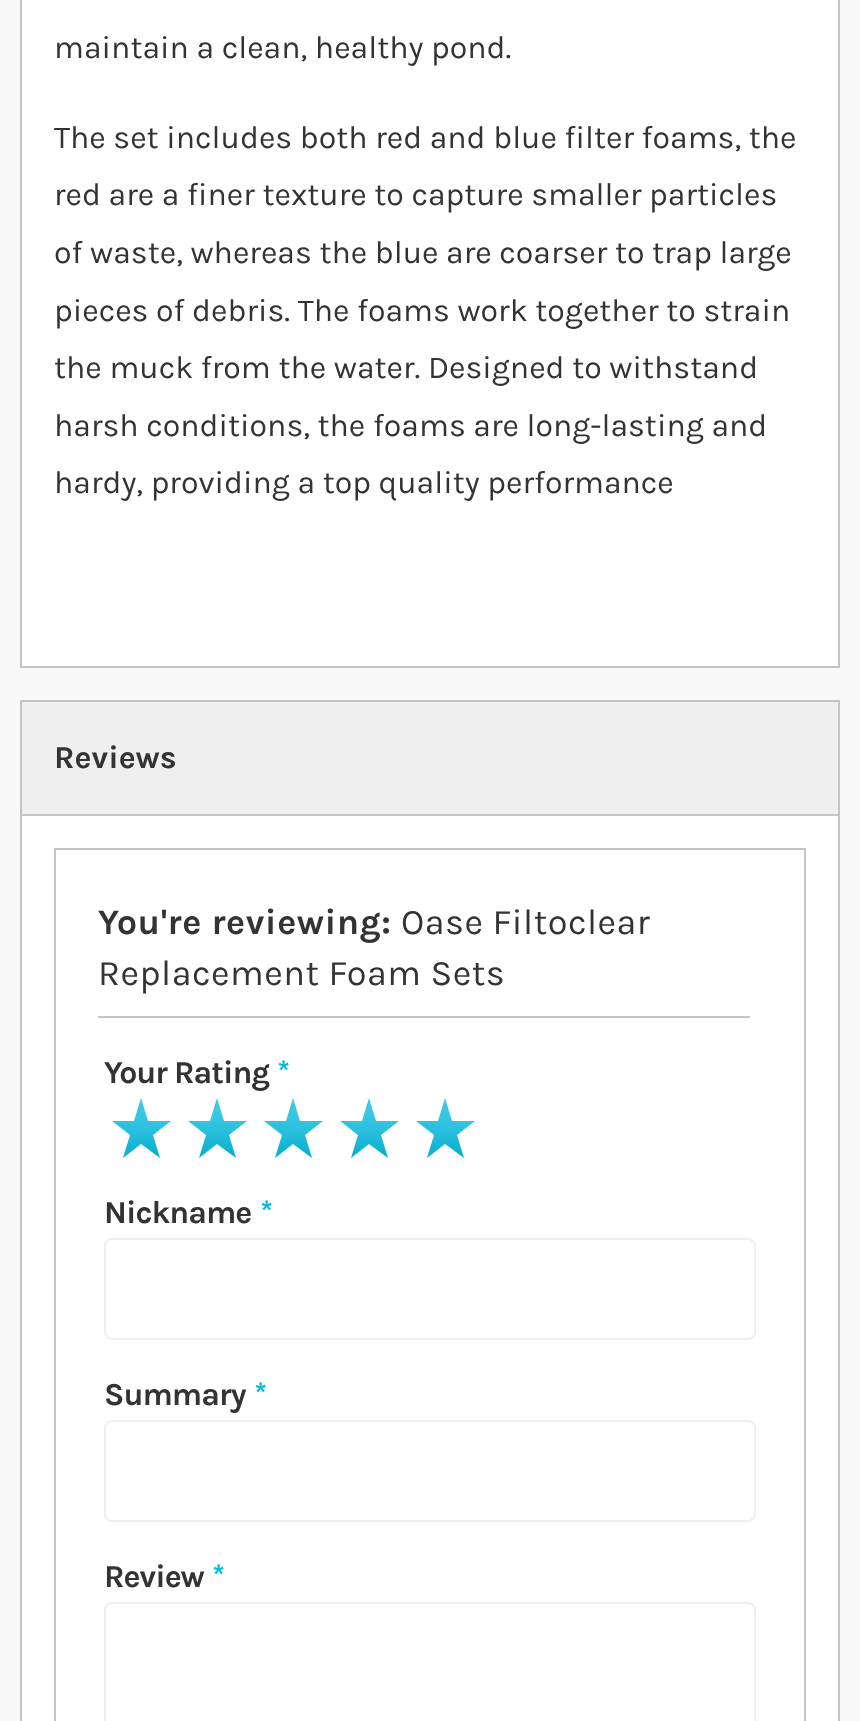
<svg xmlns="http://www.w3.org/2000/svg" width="860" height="1721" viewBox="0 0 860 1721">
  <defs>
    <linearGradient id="g1" gradientUnits="userSpaceOnUse" x1="141" y1="1154" x2="141" y2="1100"><stop offset="0.02" stop-color="#09b0d1"/><stop offset="0.11" stop-color="#12b4d4"/><stop offset="0.44" stop-color="#2ac0dd"/><stop offset="0.75" stop-color="#39c7e3"/><stop offset="1" stop-color="#3ec9e5"/></linearGradient>
    <linearGradient id="g2" gradientUnits="userSpaceOnUse" x1="217" y1="1154" x2="217" y2="1100"><stop offset="0.02" stop-color="#09b0d1"/><stop offset="0.11" stop-color="#12b4d4"/><stop offset="0.44" stop-color="#2ac0dd"/><stop offset="0.75" stop-color="#39c7e3"/><stop offset="1" stop-color="#3ec9e5"/></linearGradient>
    <linearGradient id="g3" gradientUnits="userSpaceOnUse" x1="293" y1="1154" x2="293" y2="1100"><stop offset="0.02" stop-color="#09b0d1"/><stop offset="0.11" stop-color="#12b4d4"/><stop offset="0.44" stop-color="#2ac0dd"/><stop offset="0.75" stop-color="#39c7e3"/><stop offset="1" stop-color="#3ec9e5"/></linearGradient>
    <linearGradient id="g4" gradientUnits="userSpaceOnUse" x1="369" y1="1154" x2="369" y2="1100"><stop offset="0.02" stop-color="#09b0d1"/><stop offset="0.11" stop-color="#12b4d4"/><stop offset="0.44" stop-color="#2ac0dd"/><stop offset="0.75" stop-color="#39c7e3"/><stop offset="1" stop-color="#3ec9e5"/></linearGradient>
    <linearGradient id="g5" gradientUnits="userSpaceOnUse" x1="445" y1="1154" x2="445" y2="1100"><stop offset="0.02" stop-color="#09b0d1"/><stop offset="0.11" stop-color="#12b4d4"/><stop offset="0.44" stop-color="#2ac0dd"/><stop offset="0.75" stop-color="#39c7e3"/><stop offset="1" stop-color="#3ec9e5"/></linearGradient>
  </defs>
  <rect width="100%" height="100%" fill="#f9f9f9"/>
  <rect x="21" y="-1" width="818" height="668" fill="none" stroke="#c4c4c4" stroke-width="2"/>
  <rect x="22" y="0" width="816" height="666" fill="#ffffff"/>
  <text x="54" y="58" font-family="Karla" font-size="32" fill="#333333">maintain a clean, healthy pond.</text>
  <text x="54" y="148" font-family="Karla" font-size="32" fill="#333333">The set includes both red and blue filter foams, the</text>
  <text x="54" y="205" font-family="Karla" font-size="32" fill="#333333">red are a finer texture to capture smaller particles</text>
  <text x="54" y="263" font-family="Karla" font-size="32" fill="#333333">of waste, whereas the blue are coarser to trap large</text>
  <text x="54" y="321" font-family="Karla" font-size="32" fill="#333333">pieces of debris. The foams work together to strain</text>
  <text x="54" y="378" font-family="Karla" font-size="32" fill="#333333">the muck from the water. Designed to withstand</text>
  <text x="54" y="436" font-family="Karla" font-size="32" fill="#333333">harsh conditions, the foams are long-lasting and</text>
  <text x="54" y="493" font-family="Karla" font-size="32" fill="#333333">hardy, providing a top quality performance</text>
  <rect x="21" y="701" width="818" height="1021" fill="none" stroke="#c4c4c4" stroke-width="2"/>
  <rect x="22" y="702" width="816" height="112" fill="#efefef"/>
  <rect x="22" y="814" width="816" height="2" fill="#c4c4c4"/>
  <text x="54" y="768" font-family="Karla" font-size="32" font-weight="bold" fill="#333333">Reviews</text>
  <rect x="22" y="816" width="816" height="905" fill="#ffffff"/>
  <rect x="55" y="849" width="750" height="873" fill="none" stroke="#c4c4c4" stroke-width="2"/>
  <rect x="98" y="1016" width="652" height="2" fill="#c4c4c4"/>
  <text x="98" y="934" font-family="Karla" font-size="36" font-weight="bold" letter-spacing="0.5" fill="#333333">You're reviewing:</text>
  <text x="401" y="934" font-family="Karla" font-size="36" letter-spacing="0.5" fill="#333333">Oase Filtoclear</text>
  <text x="98" y="985" font-family="Karla" font-size="36" letter-spacing="0.5" fill="#333333">Replacement Foam Sets</text>
  <text x="104" y="1083" font-family="Karla" font-size="32" font-weight="bold" letter-spacing="-1" fill="#333333">Your Rating</text>
  <text x="277" y="1083" font-family="Karla" font-size="32" font-weight="bold" letter-spacing="-1" fill="#01badc">*</text>
  <path d="M141 1098L148 1121H171L153 1135L160 1158L141 1144L123 1158L130 1135L112 1121H134Z" fill="url(#g1)"/>
  <path d="M217 1098L224 1121H247L229 1135L236 1158L217 1144L199 1158L206 1135L188 1121H210Z" fill="url(#g2)"/>
  <path d="M293 1098L300 1121H323L305 1135L312 1158L293 1144L275 1158L282 1135L264 1121H286Z" fill="url(#g3)"/>
  <path d="M369 1098L376 1121H399L381 1135L388 1158L369 1144L351 1158L358 1135L340 1121H362Z" fill="url(#g4)"/>
  <path d="M445 1098L452 1121H475L457 1135L464 1158L445 1144L427 1158L434 1135L416 1121H438Z" fill="url(#g5)"/>
  <text x="104" y="1223" font-family="Karla" font-size="32" font-weight="bold" letter-spacing="-1" fill="#333333">Nickname</text>
  <text x="260" y="1223" font-family="Karla" font-size="32" font-weight="bold" letter-spacing="-1" fill="#01badc">*</text>
  <rect x="105" y="1239" width="650" height="100" rx="7" fill="none" stroke="#efefef" stroke-width="2"/>
  <text x="104" y="1405" font-family="Karla" font-size="32" font-weight="bold" letter-spacing="-1" fill="#333333">Summary</text>
  <text x="254" y="1405" font-family="Karla" font-size="32" font-weight="bold" letter-spacing="-1" fill="#01badc">*</text>
  <rect x="105" y="1421" width="650" height="100" rx="7" fill="none" stroke="#efefef" stroke-width="2"/>
  <text x="104" y="1587" font-family="Karla" font-size="32" font-weight="bold" letter-spacing="-1" fill="#333333">Review</text>
  <text x="212" y="1587" font-family="Karla" font-size="32" font-weight="bold" letter-spacing="-1" fill="#01badc">*</text>
  <rect x="105" y="1603" width="650" height="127" rx="7" fill="none" stroke="#efefef" stroke-width="2"/>
</svg>
